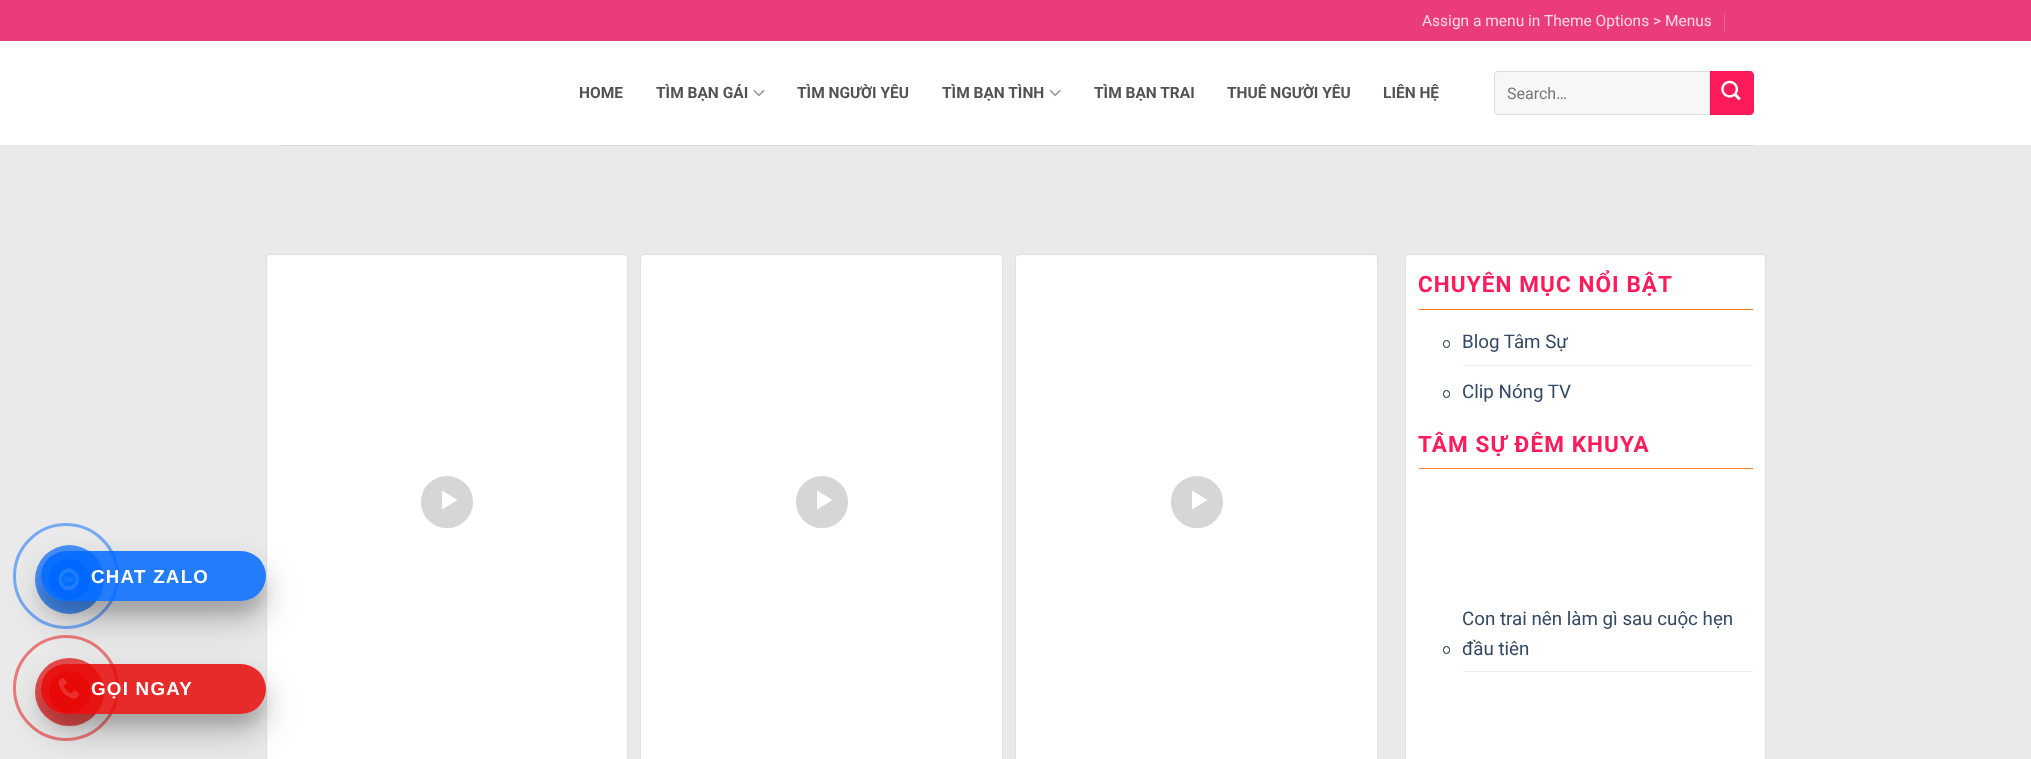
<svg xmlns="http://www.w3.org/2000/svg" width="2031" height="759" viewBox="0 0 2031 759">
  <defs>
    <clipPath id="clip1"><path d="M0 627H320V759H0ZM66 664H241C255 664 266 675 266 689C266 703 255 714 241 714H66C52 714 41 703 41 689C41 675 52 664 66 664Z" clip-rule="evenodd"/></clipPath>
    <filter id="blur1" x="-50%" y="-200%" width="200%" height="500%"><feGaussianBlur stdDeviation="17.5"/></filter>
    <clipPath id="clip2"><path d="M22 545H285V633H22ZM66 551H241C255 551 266 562 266 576C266 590 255 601 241 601H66C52 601 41 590 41 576C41 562 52 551 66 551Z" clip-rule="evenodd"/></clipPath>
    <filter id="blur2" x="-50%" y="-200%" width="200%" height="500%"><feGaussianBlur stdDeviation="6"/></filter>
    <clipPath id="clip3"><path d="M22 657H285V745H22ZM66 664H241C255 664 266 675 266 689C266 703 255 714 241 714H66C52 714 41 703 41 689C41 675 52 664 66 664Z" clip-rule="evenodd"/></clipPath>
    <clipPath id="clip4"><path d="M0 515H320V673H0ZM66 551H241C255 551 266 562 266 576C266 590 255 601 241 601H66C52 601 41 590 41 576C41 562 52 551 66 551Z" clip-rule="evenodd"/></clipPath>
  </defs>
  <rect width="100%" height="100%" fill="#ffffff"/>
  <rect x="0" y="145" width="2031" height="614" fill="#eaeaea"/>
  <circle cx="66" cy="688" r="51.5" fill="none" stroke="#e87979" stroke-width="3"/>
  <rect x="35" y="658" width="69" height="68" rx="34" fill="#e74c4c"/>
  <rect x="49" y="671" width="41" height="42" rx="20.5" fill="#e60808"/>
  <image x="58" y="677" width="22" height="22" href="img2.png"/>
  <rect x="266.5" y="254.5" width="361" height="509" rx="3.5" fill="#ffffff" stroke="#e0e0e0"/>
  <g clip-path="url(#clip1)">
    <rect x="41" y="681" width="225" height="50" rx="25" fill="#000000" fill-opacity="0.25" filter="url(#blur1)"/>
  </g>
  <circle cx="66" cy="576" r="51.5" fill="none" stroke="#75a9f4" stroke-width="3"/>
  <circle cx="69.5" cy="579.5" r="34.5" fill="#468ff9"/>
  <circle cx="69.5" cy="579.5" r="20.5" fill="#0068ff"/>
  <image x="58" y="568" width="22" height="23" href="img1.png"/>
  <g clip-path="url(#clip2)">
    <rect x="41" y="564" width="225" height="50" rx="25" fill="#000000" fill-opacity="0.1" filter="url(#blur2)"/>
  </g>
  <g clip-path="url(#clip3)">
    <rect x="41" y="676" width="225" height="50" rx="25" fill="#000000" fill-opacity="0.1" filter="url(#blur2)"/>
  </g>
  <rect x="41" y="664" width="225" height="50" rx="25" fill="#e60808" fill-opacity="0.85"/>
  <g clip-path="url(#clip4)">
    <rect x="41" y="569" width="225" height="50" rx="25" fill="#000000" fill-opacity="0.25" filter="url(#blur1)"/>
  </g>
  <rect x="41" y="551" width="225" height="50" rx="25" fill="#0068ff" fill-opacity="0.85"/>
  <text x="91" y="583" font-family="Liberation Sans" font-size="18.75" font-weight="bold" letter-spacing="1.25" fill="#ffffff">CHAT ZALO</text>
  <text x="91" y="695" font-family="Liberation Sans" font-size="18.75" font-weight="bold" letter-spacing="1.25" fill="#ffffff">GỌI NGAY</text>
  <rect x="0" y="0" width="2031" height="41" fill="#ea3b7b"/>
  <text x="1422" y="26" font-family="Roboto" font-size="15.5" fill="#fbd8e5">Assign a menu in Theme Options &gt; Menus</text>
  <rect x="1724" y="13" width="1" height="18" fill="#ee6295"/>
  <text x="579" y="98" font-family="Roboto" font-size="15.5" font-weight="bold" fill="#525252">HOME</text>
  <text x="656" y="98" font-family="Roboto" font-size="15.5" font-weight="bold" fill="#525252">TÌM BẠN GÁI</text>
  <image x="753" y="89" width="12" height="8" href="img3.png"/>
  <text x="797" y="98" font-family="Roboto" font-size="15.5" font-weight="bold" fill="#525252">TÌM NGƯỜI YÊU</text>
  <text x="942" y="98" font-family="Roboto" font-size="15.5" font-weight="bold" fill="#525252">TÌM BẠN TÌNH</text>
  <image x="1049" y="89" width="12" height="8" href="img4.png"/>
  <text x="1094" y="98" font-family="Roboto" font-size="15.5" font-weight="bold" fill="#525252">TÌM BẠN TRAI</text>
  <text x="1227" y="98" font-family="Roboto" font-size="15.5" font-weight="bold" fill="#525252">THUÊ NGƯỜI YÊU</text>
  <text x="1383" y="98" font-family="Roboto" font-size="15.5" font-weight="bold" fill="#525252">LIÊN HỆ</text>
  <path d="M1498 71.5H1709.5V114.5H1498C1496 114.5 1494.5 113 1494.5 111V75C1494.5 73 1496 71.5 1498 71.5Z" fill="#f7f7f7" stroke="#dddddd"/>
  <text x="1507" y="99" font-family="Roboto" font-size="16" fill="#757575">Search…</text>
  <path d="M1710 71H1750C1752 71 1754 73 1754 75V111C1754 113 1752 115 1750 115H1710Z" fill="#ff1b5a"/>
  <rect x="1710.5" y="71.5" width="43" height="43" fill="none" stroke="#000000" stroke-opacity="0.05"/>
  <image x="1721" y="80" width="20" height="20" href="img5.png"/>
  <rect x="279" y="145" width="1475" height="1" fill="#d8d8d8"/>
  <circle cx="447" cy="502" r="27.5" fill="#d6d6d6" stroke="#ffffff" stroke-width="3"/>
  <path d="M442 490.5L457.5 500L442 509.5Z" fill="#ffffff"/>
  <rect x="640.5" y="254.5" width="362" height="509" rx="3.5" fill="#ffffff" stroke="#e0e0e0"/>
  <circle cx="822" cy="502" r="27.5" fill="#d6d6d6" stroke="#ffffff" stroke-width="3"/>
  <path d="M817 490.5L832.5 500L817 509.5Z" fill="#ffffff"/>
  <rect x="1015.5" y="254.5" width="362" height="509" rx="3.5" fill="#ffffff" stroke="#e0e0e0"/>
  <circle cx="1197" cy="502" r="27.5" fill="#d6d6d6" stroke="#ffffff" stroke-width="3"/>
  <path d="M1192 490.5L1207.5 500L1192 509.5Z" fill="#ffffff"/>
  <rect x="1405.5" y="254.5" width="360" height="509" rx="3.5" fill="#ffffff" stroke="#e0e0e0"/>
  <text x="1418" y="292" font-family="Roboto" font-size="22.5" font-weight="bold" letter-spacing="1.1" fill="#ff1c5b">CHUYÊN MỤC NỔI BẬT</text>
  <rect x="1419" y="309" width="334" height="1" fill="#f97f29"/>
  <rect x="1443.5" y="340.5" width="6" height="7" rx="3" fill="none" stroke="#00252d"/>
  <text x="1462" y="348" font-family="Roboto" font-size="18.75" fill="#334862">Blog Tâm Sự</text>
  <rect x="1463" y="365" width="290" height="1" fill="#ececec"/>
  <rect x="1443.5" y="390.5" width="6" height="7" rx="3" fill="none" stroke="#00252d"/>
  <text x="1462" y="398" font-family="Roboto" font-size="18.75" fill="#334862">Clip Nóng TV</text>
  <text x="1418" y="452" font-family="Roboto" font-size="22.5" font-weight="bold" letter-spacing="1.1" fill="#ff1c5b">TÂM SỰ ĐÊM KHUYA</text>
  <rect x="1419" y="468" width="334" height="1" fill="#f97f29"/>
  <rect x="1443.5" y="646.5" width="6" height="7" rx="3" fill="none" stroke="#00252d"/>
  <text x="1462" y="625" font-family="Roboto" font-size="18.75" fill="#334862">Con trai nên làm gì sau cuộc hẹn</text>
  <text x="1462" y="655" font-family="Roboto" font-size="18.75" fill="#334862">đầu tiên</text>
  <rect x="1463" y="671" width="290" height="1" fill="#ececec"/>
</svg>
